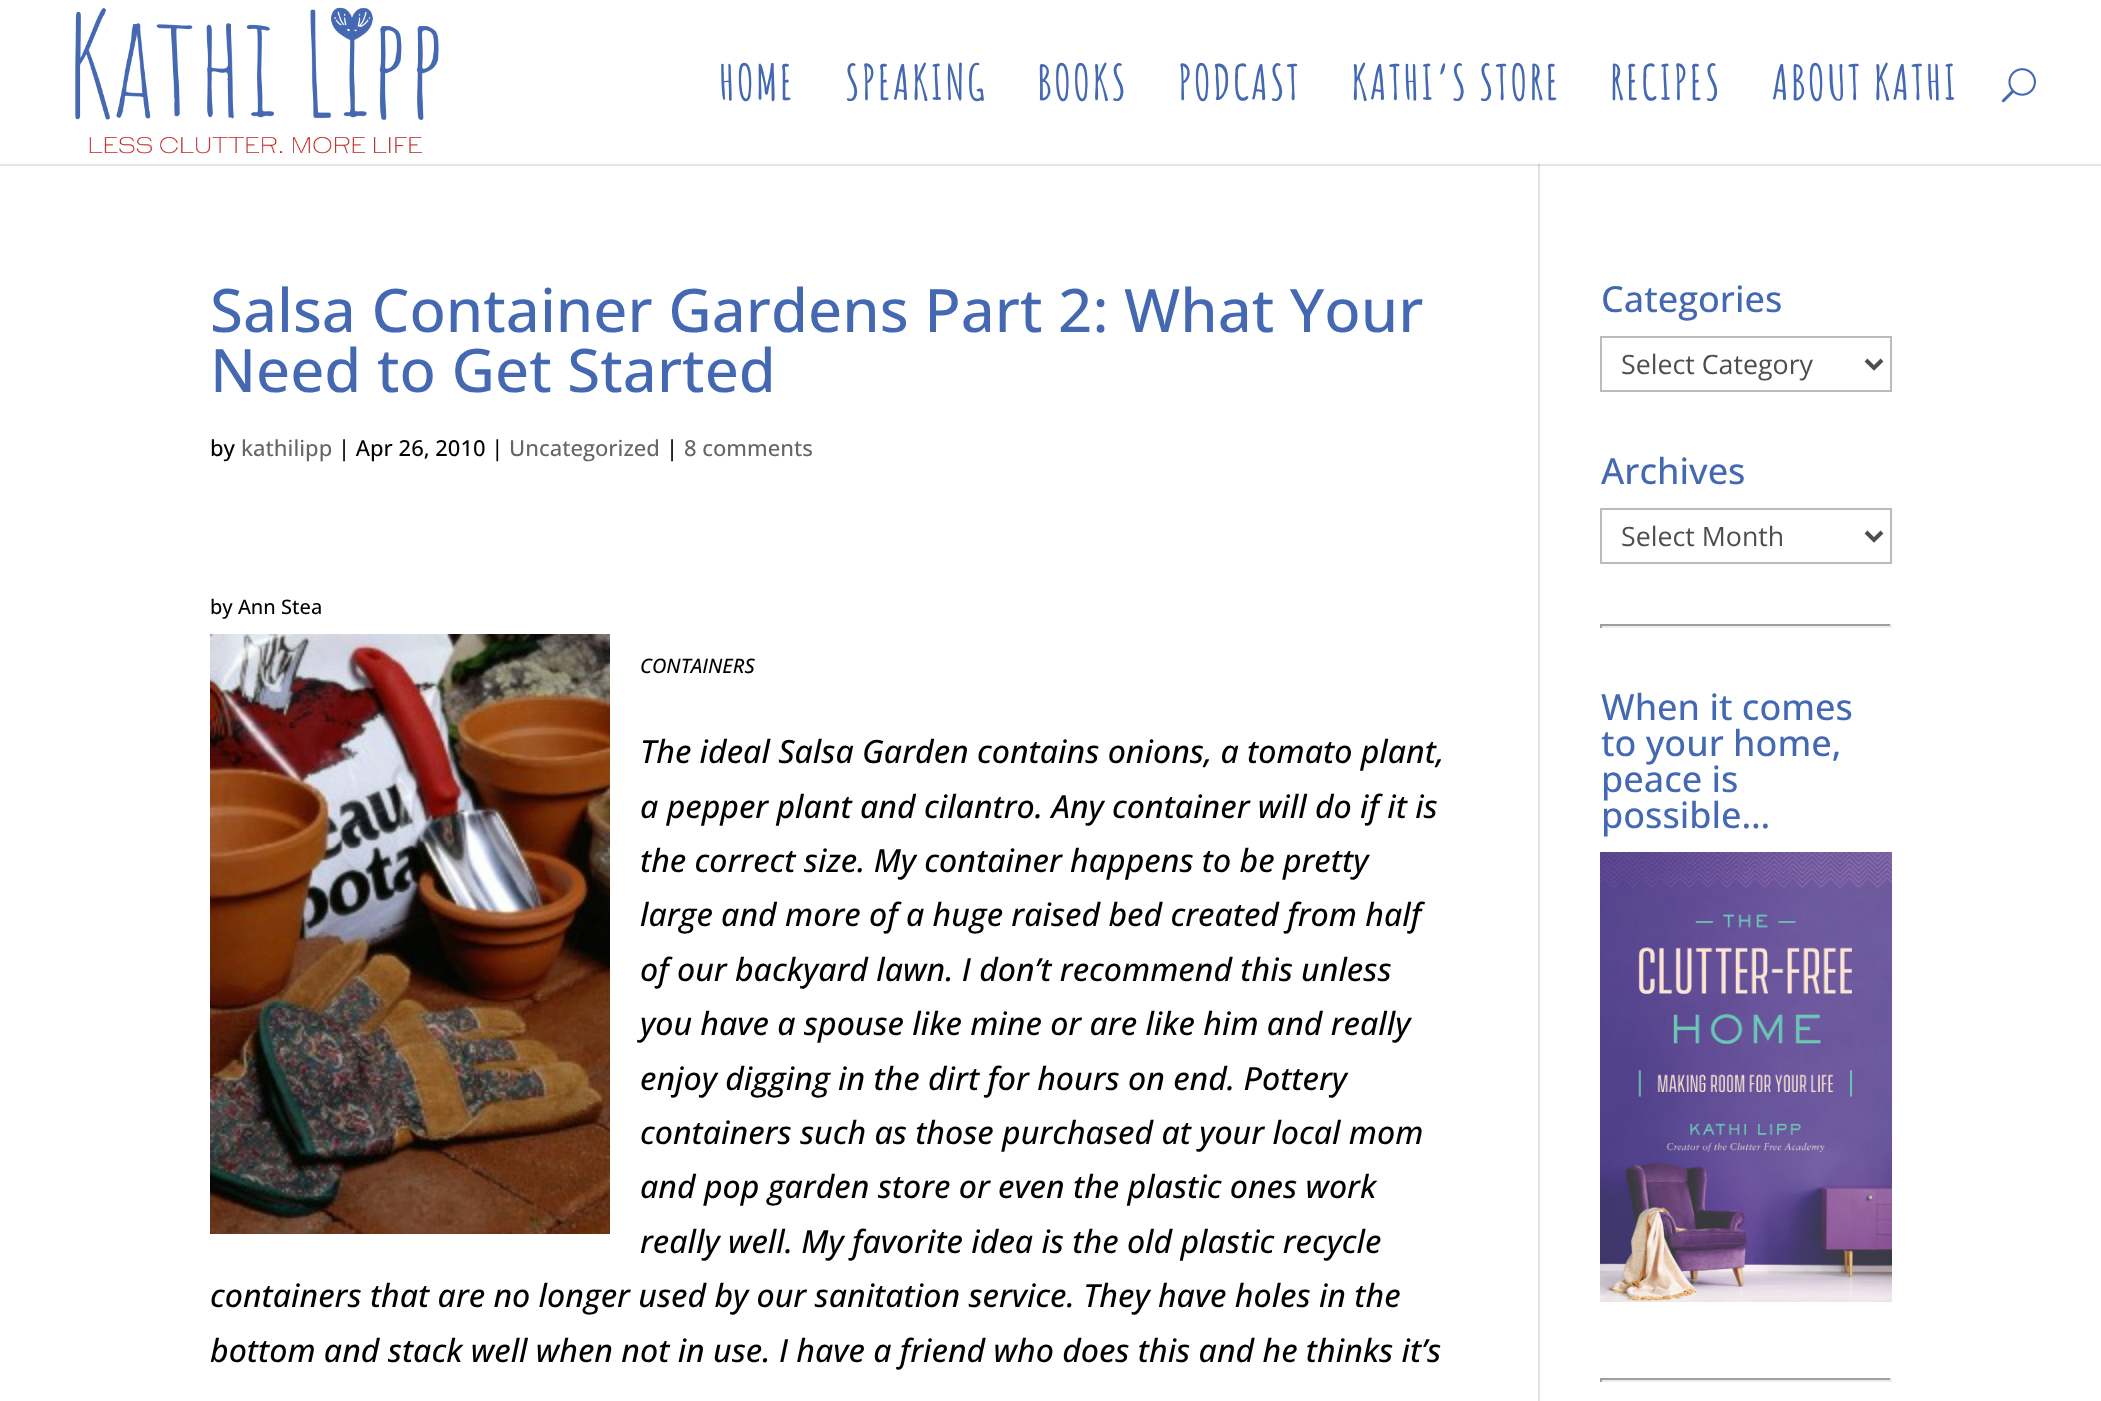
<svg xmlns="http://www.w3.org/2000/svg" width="2101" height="1401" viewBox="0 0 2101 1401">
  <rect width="100%" height="100%" fill="#ffffff"/>
  <rect x="0" y="164" width="2101" height="2" fill="#e6e6e6"/>
  <image x="75" y="7" width="364" height="147" href="img1.png"/>
  <text x="719" y="100" font-family="Amatic SC" font-size="48" font-weight="bold" letter-spacing="2" fill="#4469b2">HOME</text>
  <text x="845" y="100" font-family="Amatic SC" font-size="48" font-weight="bold" letter-spacing="2" fill="#4469b2">SPEAKING</text>
  <text x="1037" y="100" font-family="Amatic SC" font-size="48" font-weight="bold" letter-spacing="2" fill="#4469b2">BOOKS</text>
  <text x="1178" y="100" font-family="Amatic SC" font-size="48" font-weight="bold" letter-spacing="2" fill="#4469b2">PODCAST</text>
  <text x="1351" y="100" font-family="Amatic SC" font-size="48" font-weight="bold" letter-spacing="2" fill="#4469b2">KATHI’S STORE</text>
  <text x="1610" y="100" font-family="Amatic SC" font-size="48" font-weight="bold" letter-spacing="2" fill="#4469b2">RECIPES</text>
  <text x="1772" y="100" font-family="Amatic SC" font-size="48" font-weight="bold" letter-spacing="2" fill="#4469b2">ABOUT KATHI</text>
  <image x="2001" y="68" width="35" height="35" href="img2.png"/>
  <rect x="1538" y="164" width="2" height="1237" fill="#e2e2e2"/>
  <rect x="1538" y="164" width="2" height="2" fill="#cbcbcb"/>
  <text x="210" y="332" font-family="Open Sans" font-size="60" font-weight="500" fill="#4469b2">Salsa Container Gardens Part 2: What Your</text>
  <text x="210" y="392" font-family="Open Sans" font-size="60" font-weight="500" fill="#4469b2">Need to Get Started</text>
  <text x="210" y="456" font-family="Open Sans" font-size="22" font-weight="500" fill="#000000">by</text>
  <text x="241" y="456" font-family="Open Sans" font-size="22" font-weight="500" fill="#666666">kathilipp</text>
  <text x="338" y="456" font-family="Open Sans" font-size="22" font-weight="500" fill="#000000">| Apr 26, 2010 |</text>
  <text x="509" y="456" font-family="Open Sans" font-size="22" font-weight="500" fill="#666666">Uncategorized</text>
  <text x="666" y="456" font-family="Open Sans" font-size="22" font-weight="500" fill="#000000">|</text>
  <text x="684" y="456" font-family="Open Sans" font-size="22" font-weight="500" fill="#666666">8 comments</text>
  <text x="210" y="614" font-family="Open Sans" font-size="20" font-weight="500" fill="#000000">by Ann Stea</text>
  <image x="210" y="634" width="400" height="600" href="img3.png"/>
  <text x="640" y="673" font-family="Open Sans" font-size="20" font-weight="500" font-style="italic" fill="#000000">CONTAINERS</text>
  <text x="640" y="763" font-family="Open Sans" font-size="32" font-weight="500" font-style="italic" fill="#000000">The ideal Salsa Garden contains onions, a tomato plant,</text>
  <text x="640" y="818" font-family="Open Sans" font-size="32" font-weight="500" font-style="italic" fill="#000000">a pepper plant and cilantro. Any container will do if it is</text>
  <text x="640" y="872" font-family="Open Sans" font-size="32" font-weight="500" font-style="italic" fill="#000000">the correct size. My container happens to be pretty</text>
  <text x="640" y="926" font-family="Open Sans" font-size="32" font-weight="500" font-style="italic" fill="#000000">large and more of a huge raised bed created from half</text>
  <text x="640" y="981" font-family="Open Sans" font-size="32" font-weight="500" font-style="italic" fill="#000000">of our backyard lawn. I don’t recommend this unless</text>
  <text x="640" y="1035" font-family="Open Sans" font-size="32" font-weight="500" font-style="italic" fill="#000000">you have a spouse like mine or are like him and really</text>
  <text x="640" y="1090" font-family="Open Sans" font-size="32" font-weight="500" font-style="italic" fill="#000000">enjoy digging in the dirt for hours on end. Pottery</text>
  <text x="640" y="1144" font-family="Open Sans" font-size="32" font-weight="500" font-style="italic" fill="#000000">containers such as those purchased at your local mom</text>
  <text x="640" y="1198" font-family="Open Sans" font-size="32" font-weight="500" font-style="italic" fill="#000000">and pop garden store or even the plastic ones work</text>
  <text x="640" y="1253" font-family="Open Sans" font-size="32" font-weight="500" font-style="italic" fill="#000000">really well. My favorite idea is the old plastic recycle</text>
  <text x="210" y="1307" font-family="Open Sans" font-size="32" font-weight="500" font-style="italic" fill="#000000">containers that are no longer used by our sanitation service. They have holes in the</text>
  <text x="210" y="1362" font-family="Open Sans" font-size="32" font-weight="500" font-style="italic" fill="#000000">bottom and stack well when not in use. I have a friend who does this and he thinks it’s</text>
  <text x="1601" y="312" font-family="Open Sans" font-size="36" font-weight="500" fill="#4469b2">Categories</text>
  <rect x="1601" y="337" width="290" height="54" fill="none" stroke="#bbbbbb" stroke-width="2"/>
  <path d="M1866 360L1874 368L1882 360" fill="none" stroke="#4e4e4e" stroke-width="4"/>
  <text x="1621" y="374" font-family="Open Sans" font-size="26.75" fill="#4e4e4e">Select Category</text>
  <text x="1601" y="484" font-family="Open Sans" font-size="36" font-weight="500" fill="#4469b2">Archives</text>
  <rect x="1601" y="509" width="290" height="54" fill="none" stroke="#bbbbbb" stroke-width="2"/>
  <path d="M1866 532L1874 540L1882 532" fill="none" stroke="#4e4e4e" stroke-width="4"/>
  <text x="1621" y="546" font-family="Open Sans" font-size="26.75" fill="#4e4e4e">Select Month</text>
  <rect x="1600" y="624" width="292" height="2" fill="#9f9f9f"/>
  <rect x="1890" y="624" width="2" height="4" fill="#eeeeee"/>
  <rect x="1600" y="626" width="292" height="2" fill="#eeeeee"/>
  <rect x="1600" y="624" width="2" height="4" fill="#9f9f9f"/>
  <text x="1601" y="720" font-family="Open Sans" font-size="36" font-weight="500" fill="#4469b2">When it comes</text>
  <text x="1601" y="756" font-family="Open Sans" font-size="36" font-weight="500" fill="#4469b2">to your home,</text>
  <text x="1601" y="792" font-family="Open Sans" font-size="36" font-weight="500" fill="#4469b2">peace is</text>
  <text x="1601" y="828" font-family="Open Sans" font-size="36" font-weight="500" fill="#4469b2">possible…</text>
  <image x="1600" y="852" width="292" height="450" href="img4.png"/>
  <rect x="1600" y="1378" width="292" height="2" fill="#9f9f9f"/>
  <rect x="1890" y="1378" width="2" height="4" fill="#eeeeee"/>
  <rect x="1600" y="1380" width="292" height="2" fill="#eeeeee"/>
  <rect x="1600" y="1378" width="2" height="4" fill="#9f9f9f"/>
</svg>
